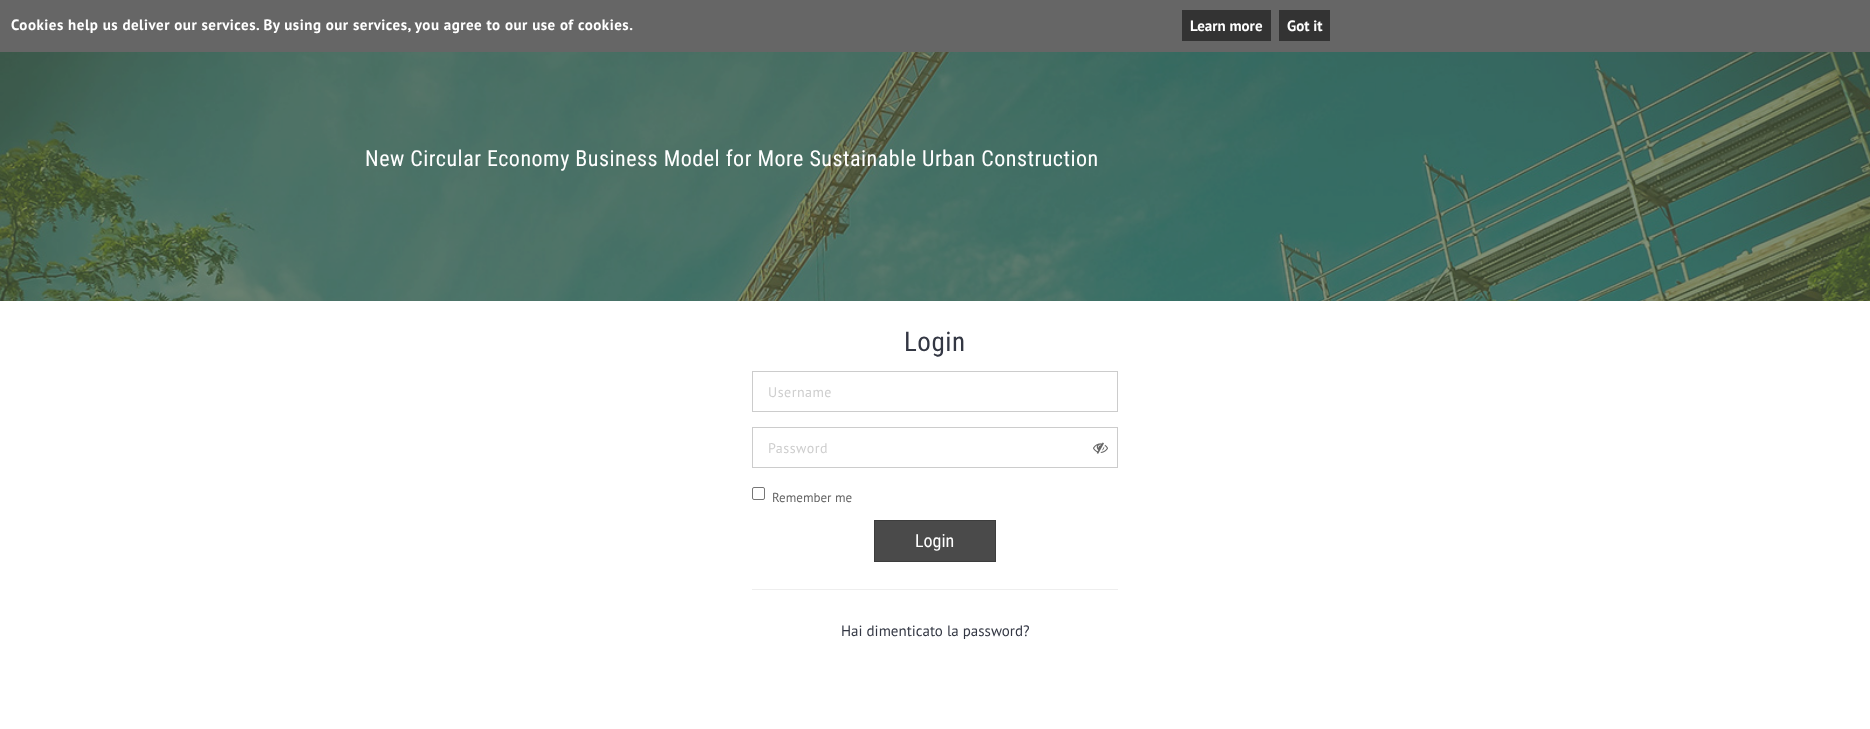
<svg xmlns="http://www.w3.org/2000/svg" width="1870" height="729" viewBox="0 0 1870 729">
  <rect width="100%" height="100%" fill="#ffffff"/>
  <rect x="0" y="0" width="1870" height="52" fill="#666666"/>
  <text x="11" y="30" font-family="PT Sans" font-size="15" font-weight="bold" letter-spacing="0.5" fill="#ffffff">Cookies help us deliver our services. By using our services, you agree to our use of cookies.</text>
  <rect x="1182" y="10" width="89" height="31" fill="#333333"/>
  <text x="1190" y="31" font-family="PT Sans" font-size="15" font-weight="bold" fill="#ffffff">Learn more</text>
  <rect x="1279" y="10" width="51" height="31" fill="#333333"/>
  <text x="1287" y="31" font-family="PT Sans" font-size="15" font-weight="bold" fill="#ffffff">Got it</text>
  <image x="0" y="52" width="1870" height="249" href="img1.png"/>
  <text x="365" y="166" font-family="Roboto Condensed" font-size="22" letter-spacing="0.5" fill="#ffffff">New Circular Economy Business Model for More Sustainable Urban Construction</text>
  <text x="904" y="351" font-family="Roboto Condensed" font-size="27" letter-spacing="0.5" fill="#333743">Login</text>
  <rect x="752.5" y="371.5" width="365" height="40" fill="none" stroke="#cccccc"/>
  <text x="768" y="397" font-family="PT Sans" font-size="14" letter-spacing="0.5" fill="#cecece">Username</text>
  <rect x="752.5" y="427.5" width="365" height="40" fill="none" stroke="#cccccc"/>
  <text x="768" y="453" font-family="PT Sans" font-size="14" letter-spacing="0.5" fill="#cecece">Password</text>
  <image x="1093" y="442" width="15" height="12" href="img2.png"/>
  <rect x="752.5" y="487.5" width="12" height="12" rx="1.5" fill="none" stroke="#767676"/>
  <text x="772" y="502" font-family="PT Sans" font-size="13" fill="#666666">Remember me</text>
  <rect x="874.5" y="520.5" width="121" height="41" fill="#4a4a4a" stroke="#3d3d3d"/>
  <text x="915" y="547" font-family="Roboto Condensed" font-size="18" fill="#ffffff">Login</text>
  <rect x="752" y="589" width="366" height="1" fill="#eeeeee"/>
  <text x="841" y="636" font-family="PT Sans" font-size="15" fill="#333743">Hai dimenticato la password?</text>
</svg>
